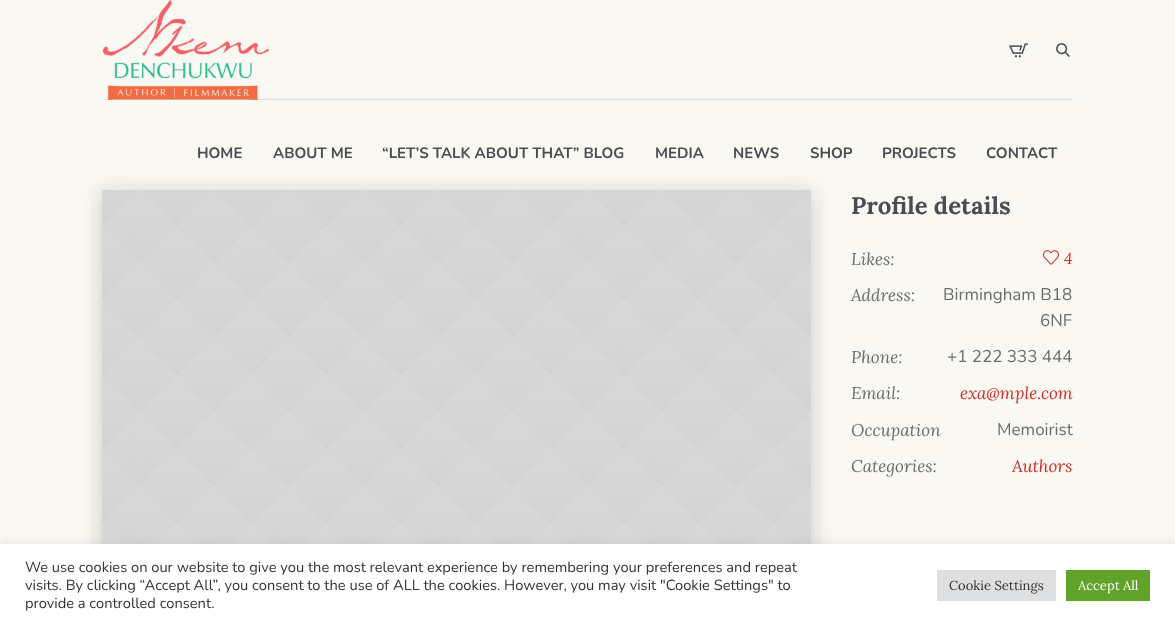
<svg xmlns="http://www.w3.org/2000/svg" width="1175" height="626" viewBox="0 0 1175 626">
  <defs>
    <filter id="blur1" x="-50%" y="-200%" width="200%" height="500%"><feGaussianBlur stdDeviation="10"/></filter>
    <filter id="blur2" x="-50%" y="-200%" width="200%" height="500%"><feGaussianBlur stdDeviation="5"/></filter>
  </defs>
  <rect width="100%" height="100%" fill="#faf8f2"/>
  <rect x="103" y="99" width="970" height="1" fill="#dfdfdf"/>
  <image x="102" y="0" width="167" height="100" href="img1.png"/>
  <image x="1009" y="43" width="19" height="15" href="img2.png"/>
  <image x="1056" y="43" width="14" height="14" href="img3.png"/>
  <text x="197" y="158" font-family="Nunito" font-size="15" font-weight="bold" fill="#484c53">HOME</text>
  <text x="273" y="158" font-family="Nunito" font-size="15" font-weight="bold" fill="#484c53">ABOUT ME</text>
  <text x="382" y="158" font-family="Nunito" font-size="15" font-weight="bold" fill="#484c53">“LET’S TALK ABOUT THAT” BLOG</text>
  <text x="655" y="158" font-family="Nunito" font-size="15" font-weight="bold" fill="#484c53">MEDIA</text>
  <text x="733" y="158" font-family="Nunito" font-size="15" font-weight="bold" fill="#484c53">NEWS</text>
  <text x="810" y="158" font-family="Nunito" font-size="15" font-weight="bold" fill="#484c53">SHOP</text>
  <text x="882" y="158" font-family="Nunito" font-size="15" font-weight="bold" fill="#484c53">PROJECTS</text>
  <text x="986" y="158" font-family="Nunito" font-size="15" font-weight="bold" fill="#484c53">CONTACT</text>
  <rect x="102" y="194" width="709" height="398" fill="#2b2d31" fill-opacity="0.25" filter="url(#blur1)"/>
  <image x="102" y="190" width="709" height="354" href="img4.png"/>
  <text x="851" y="214" font-family="Lora" font-size="24" font-weight="bold" fill="#484c53">Profile details</text>
  <text x="851" y="265" font-family="Lora" font-size="17" font-style="italic" fill="#6b6c70">Likes:</text>
  <image x="1043" y="250" width="16" height="15" href="img5.png"/>
  <text x="1064" y="264" font-family="Lora" font-size="16" font-style="italic" fill="#cc302b">4</text>
  <text x="851" y="301" font-family="Lora" font-size="17" font-style="italic" fill="#6b6c70">Address:</text>
  <text x="943" y="300" font-family="Nunito" font-size="17" fill="#6b6c70">Birmingham B18</text>
  <text x="1040" y="326" font-family="Nunito" font-size="17" fill="#6b6c70">6NF</text>
  <text x="851" y="363" font-family="Lora" font-size="17" font-style="italic" fill="#6b6c70">Phone:</text>
  <text x="947" y="362" font-family="Nunito" font-size="17" fill="#6b6c70">+1 222 333 444</text>
  <text x="851" y="399" font-family="Lora" font-size="17" font-style="italic" fill="#6b6c70">Email:</text>
  <text x="960" y="399" font-family="Lora" font-size="17" font-style="italic" fill="#cc302b">exa@mple.com</text>
  <text x="851" y="436" font-family="Lora" font-size="17" font-style="italic" fill="#6b6c70">Occupation</text>
  <text x="997" y="435" font-family="Nunito" font-size="17" fill="#6b6c70">Memoirist</text>
  <text x="851" y="472" font-family="Lora" font-size="17" font-style="italic" fill="#6b6c70">Categories:</text>
  <text x="1012" y="472" font-family="Lora" font-size="17" font-style="italic" fill="#cc302b">Authors</text>
  <rect x="0" y="543" width="1175" height="82" fill="#acabab" fill-opacity="0.3" filter="url(#blur2)"/>
  <rect x="0" y="544" width="1175" height="82" fill="#ffffff"/>
  <text x="25" y="572" font-family="Nunito" font-size="14.67" fill="#333333">We use cookies on our website to give you the most relevant experience by remembering your preferences and repeat</text>
  <text x="25" y="590" font-family="Nunito" font-size="14.67" fill="#333333">visits. By clicking “Accept All”, you consent to the use of ALL the cookies. However, you may visit "Cookie Settings" to</text>
  <text x="25" y="608" font-family="Nunito" font-size="14.67" fill="#333333">provide a controlled consent.</text>
  <rect x="937" y="570" width="119" height="31" fill="#dedfe0"/>
  <text x="949" y="590" font-family="Lora" font-size="13" fill="#333333">Cookie Settings</text>
  <rect x="1066" y="570" width="84" height="31" fill="#61a229"/>
  <text x="1078" y="590" font-family="Lora" font-size="13" fill="#ffffff">Accept All</text>
</svg>
